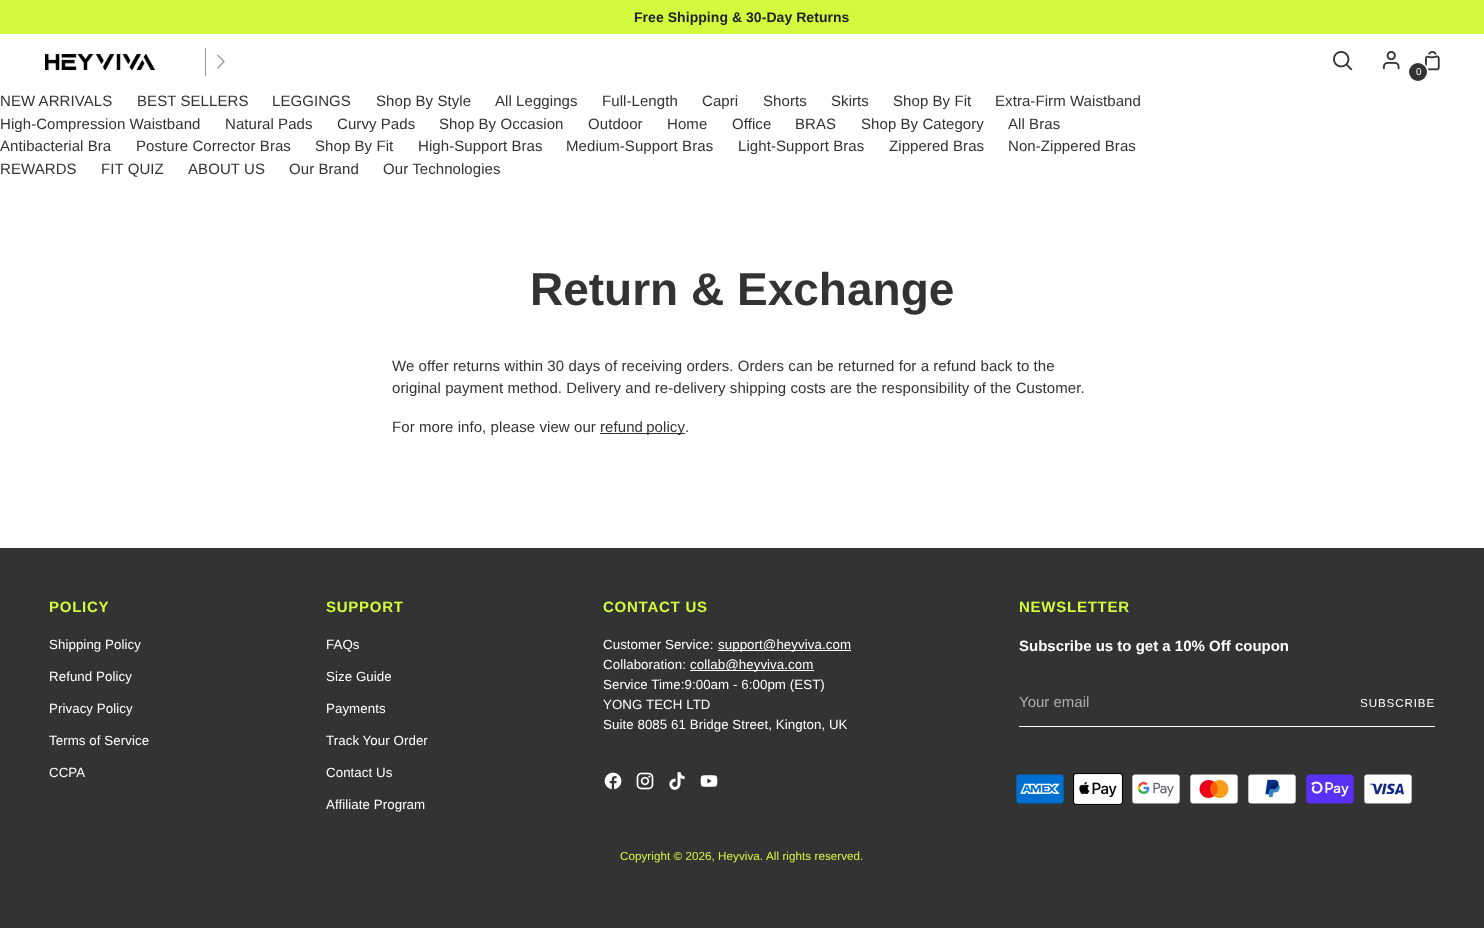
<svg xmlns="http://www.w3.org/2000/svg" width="1484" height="928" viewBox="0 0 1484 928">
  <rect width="100%" height="100%" fill="#ffffff"/>
  <rect x="0" y="0" width="1484" height="34" fill="#d2fb3e"/>
  <text x="634" y="22" font-family="Arimo" font-size="14" font-weight="bold" letter-spacing="0.05" fill="#231e20">Free Shipping &amp; 30-Day Returns</text>
  <image x="45" y="54" width="110" height="16" href="img1.png"/>
  <rect x="205" y="48" width="1" height="28" fill="#999999"/>
  <path d="M217.5 68.5L224 61.5L217.5 55" fill="none" stroke="#999999" stroke-width="1.3"/>
  <image x="1333" y="51" width="20" height="20" href="img2.png"/>
  <image x="1383" y="51" width="17" height="19" href="img3.png"/>
  <image x="1425" y="51" width="15" height="20" href="img4.png"/>
  <circle cx="1418.5" cy="72.5" r="9.5" fill="none" stroke="#ffffff" stroke-width="2"/>
  <circle cx="1418" cy="72" r="9" fill="#333333"/>
  <text x="1416" y="75" font-family="Arimo" font-size="10" letter-spacing="0.07" fill="#ffffff">0</text>
  <text x="0" y="106" font-family="Arimo" font-size="15" letter-spacing="0.07" fill="#333333">NEW ARRIVALS</text>
  <text x="137" y="106" font-family="Arimo" font-size="15" letter-spacing="0.07" fill="#333333">BEST SELLERS</text>
  <text x="272" y="106" font-family="Arimo" font-size="15" letter-spacing="0.07" fill="#333333">LEGGINGS</text>
  <text x="376" y="106" font-family="Arimo" font-size="15" letter-spacing="0.07" fill="#333333">Shop By Style</text>
  <text x="495" y="106" font-family="Arimo" font-size="15" letter-spacing="0.07" fill="#333333">All Leggings</text>
  <text x="602" y="106" font-family="Arimo" font-size="15" letter-spacing="0.07" fill="#333333">Full-Length</text>
  <text x="702" y="106" font-family="Arimo" font-size="15" letter-spacing="0.07" fill="#333333">Capri</text>
  <text x="763" y="106" font-family="Arimo" font-size="15" letter-spacing="0.07" fill="#333333">Shorts</text>
  <text x="831" y="106" font-family="Arimo" font-size="15" letter-spacing="0.07" fill="#333333">Skirts</text>
  <text x="893" y="106" font-family="Arimo" font-size="15" letter-spacing="0.07" fill="#333333">Shop By Fit</text>
  <text x="995" y="106" font-family="Arimo" font-size="15" letter-spacing="0.07" fill="#333333">Extra-Firm Waistband</text>
  <text x="0" y="129" font-family="Arimo" font-size="15" letter-spacing="0.07" fill="#333333">High-Compression Waistband</text>
  <text x="225" y="129" font-family="Arimo" font-size="15" letter-spacing="0.07" fill="#333333">Natural Pads</text>
  <text x="337" y="129" font-family="Arimo" font-size="15" letter-spacing="0.07" fill="#333333">Curvy Pads</text>
  <text x="439" y="129" font-family="Arimo" font-size="15" letter-spacing="0.07" fill="#333333">Shop By Occasion</text>
  <text x="588" y="129" font-family="Arimo" font-size="15" letter-spacing="0.07" fill="#333333">Outdoor</text>
  <text x="667" y="129" font-family="Arimo" font-size="15" letter-spacing="0.07" fill="#333333">Home</text>
  <text x="732" y="129" font-family="Arimo" font-size="15" letter-spacing="0.07" fill="#333333">Office</text>
  <text x="795" y="129" font-family="Arimo" font-size="15" letter-spacing="0.07" fill="#333333">BRAS</text>
  <text x="861" y="129" font-family="Arimo" font-size="15" letter-spacing="0.07" fill="#333333">Shop By Category</text>
  <text x="1008" y="129" font-family="Arimo" font-size="15" letter-spacing="0.07" fill="#333333">All Bras</text>
  <text x="0" y="151" font-family="Arimo" font-size="15" letter-spacing="0.07" fill="#333333">Antibacterial Bra</text>
  <text x="136" y="151" font-family="Arimo" font-size="15" letter-spacing="0.07" fill="#333333">Posture Corrector Bras</text>
  <text x="315" y="151" font-family="Arimo" font-size="15" letter-spacing="0.07" fill="#333333">Shop By Fit</text>
  <text x="418" y="151" font-family="Arimo" font-size="15" letter-spacing="0.07" fill="#333333">High-Support Bras</text>
  <text x="566" y="151" font-family="Arimo" font-size="15" letter-spacing="0.07" fill="#333333">Medium-Support Bras</text>
  <text x="738" y="151" font-family="Arimo" font-size="15" letter-spacing="0.07" fill="#333333">Light-Support Bras</text>
  <text x="889" y="151" font-family="Arimo" font-size="15" letter-spacing="0.07" fill="#333333">Zippered Bras</text>
  <text x="1008" y="151" font-family="Arimo" font-size="15" letter-spacing="0.07" fill="#333333">Non-Zippered Bras</text>
  <text x="0" y="174" font-family="Arimo" font-size="15" letter-spacing="0.07" fill="#333333">REWARDS</text>
  <text x="101" y="174" font-family="Arimo" font-size="15" letter-spacing="0.07" fill="#333333">FIT QUIZ</text>
  <text x="188" y="174" font-family="Arimo" font-size="15" letter-spacing="0.07" fill="#333333">ABOUT US</text>
  <text x="289" y="174" font-family="Arimo" font-size="15" letter-spacing="0.07" fill="#333333">Our Brand</text>
  <text x="383" y="174" font-family="Arimo" font-size="15" letter-spacing="0.07" fill="#333333">Our Technologies</text>
  <text x="530" y="305" font-family="Arimo" font-size="46" font-weight="bold" fill="#333333">Return &amp; Exchange</text>
  <text x="392" y="371" font-family="Arimo" font-size="15" letter-spacing="0.07" fill="#333333">We offer returns within 30 days of receiving orders. Orders can be returned for a refund back to the</text>
  <text x="392" y="393" font-family="Arimo" font-size="15" letter-spacing="0.07" fill="#333333">original payment method. Delivery and re-delivery shipping costs are the responsibility of the Customer.</text>
  <text x="392" y="432" font-family="Arimo" font-size="15" letter-spacing="0.07" fill="#333333">For more info, please view our</text>
  <rect x="600" y="433" width="85" height="1" fill="#333333"/>
  <text x="600" y="432" word-spacing="-1" font-family="Arimo" font-size="15" letter-spacing="0.07" fill="#333333">refund policy</text>
  <text x="685" y="432" font-family="Arimo" font-size="15" letter-spacing="0.07" fill="#333333">.</text>
  <rect x="0" y="548" width="1484" height="380" fill="#333333"/>
  <text x="49" y="612" font-family="Arimo" font-size="15" font-weight="bold" letter-spacing="0.75" fill="#d2fb3e">POLICY</text>
  <text x="49" y="649" font-family="Arimo" font-size="13.3" letter-spacing="0.07" fill="#ffffff">Shipping Policy</text>
  <text x="49" y="681" font-family="Arimo" font-size="13.3" letter-spacing="0.07" fill="#ffffff">Refund Policy</text>
  <text x="49" y="713" font-family="Arimo" font-size="13.3" letter-spacing="0.07" fill="#ffffff">Privacy Policy</text>
  <text x="49" y="745" font-family="Arimo" font-size="13.3" letter-spacing="0.07" fill="#ffffff">Terms of Service</text>
  <text x="49" y="777" font-family="Arimo" font-size="13.3" letter-spacing="0.07" fill="#ffffff">CCPA</text>
  <text x="326" y="612" font-family="Arimo" font-size="15" font-weight="bold" letter-spacing="0.75" fill="#d2fb3e">SUPPORT</text>
  <text x="326" y="649" font-family="Arimo" font-size="13.3" letter-spacing="0.07" fill="#ffffff">FAQs</text>
  <text x="326" y="681" font-family="Arimo" font-size="13.3" letter-spacing="0.07" fill="#ffffff">Size Guide</text>
  <text x="326" y="713" font-family="Arimo" font-size="13.3" letter-spacing="0.07" fill="#ffffff">Payments</text>
  <text x="326" y="745" font-family="Arimo" font-size="13.3" letter-spacing="0.07" fill="#ffffff">Track Your Order</text>
  <text x="326" y="777" font-family="Arimo" font-size="13.3" letter-spacing="0.07" fill="#ffffff">Contact Us</text>
  <text x="326" y="809" font-family="Arimo" font-size="13.3" letter-spacing="0.07" fill="#ffffff">Affiliate Program</text>
  <text x="603" y="612" font-family="Arimo" font-size="15" font-weight="bold" letter-spacing="0.75" fill="#d2fb3e">CONTACT US</text>
  <text x="603" y="649" font-family="Arimo" font-size="13.3" letter-spacing="0.07" fill="#ffffff">Customer Service:</text>
  <rect x="718" y="650" width="133" height="1" fill="#ffffff"/>
  <text x="718" y="649" font-family="Arimo" font-size="13.3" letter-spacing="0.07" fill="#ffffff">support@heyviva.com</text>
  <text x="603" y="669" font-family="Arimo" font-size="13.3" letter-spacing="0.07" fill="#ffffff">Collaboration:</text>
  <rect x="690" y="670" width="124" height="1" fill="#ffffff"/>
  <text x="690" y="669" font-family="Arimo" font-size="13.3" letter-spacing="0.07" fill="#ffffff">collab@heyviva.com</text>
  <text x="603" y="689" font-family="Arimo" font-size="13.3" letter-spacing="0.07" fill="#ffffff">Service Time:9:00am - 6:00pm (EST)</text>
  <text x="603" y="709" font-family="Arimo" font-size="13.3" letter-spacing="0.07" fill="#ffffff">YONG TECH LTD</text>
  <text x="603" y="729" font-family="Arimo" font-size="13.3" letter-spacing="0.07" fill="#ffffff">Suite 8085 61 Bridge Street, Kington, UK</text>
  <image x="604" y="772" width="18" height="18" href="img5.png"/>
  <image x="636" y="772" width="18" height="18" href="img6.png"/>
  <image x="669" y="772" width="16" height="18" href="img7.png"/>
  <image x="700" y="775" width="18" height="12" href="img8.png"/>
  <text x="1019" y="612" font-family="Arimo" font-size="15" font-weight="bold" letter-spacing="0.75" fill="#d2fb3e">NEWSLETTER</text>
  <text x="1019" y="651" font-family="Arimo" font-size="15" font-weight="bold" fill="#ffffff">Subscribe us to get a 10% Off coupon</text>
  <rect x="1019" y="726" width="416" height="1" fill="#ffffff"/>
  <text x="1019" y="707" font-family="Arimo" font-size="15" fill="#adadad">Your email</text>
  <text x="1360" y="707" font-family="Arimo" font-size="11.6" letter-spacing="0.9" fill="#ffffff">SUBSCRIBE</text>
  <image x="1016" y="774" width="48" height="30" href="img9.png"/>
  <image x="1073" y="773" width="50" height="32" href="img10.png"/>
  <image x="1132" y="774" width="48" height="30" href="img11.png"/>
  <image x="1190" y="774" width="48" height="30" href="img12.png"/>
  <image x="1248" y="774" width="48" height="30" href="img13.png"/>
  <image x="1306" y="774" width="48" height="30" href="img14.png"/>
  <image x="1364" y="774" width="48" height="30" href="img15.png"/>
  <text x="620" y="860" font-family="Arimo" font-size="11.6" letter-spacing="0.07" fill="#d2fb3e">Copyright © 2026, Heyviva.</text>
  <text x="766" y="860" font-family="Arimo" font-size="11.6" letter-spacing="0.07" fill="#d2fb3e">All rights reserved.</text>
</svg>
